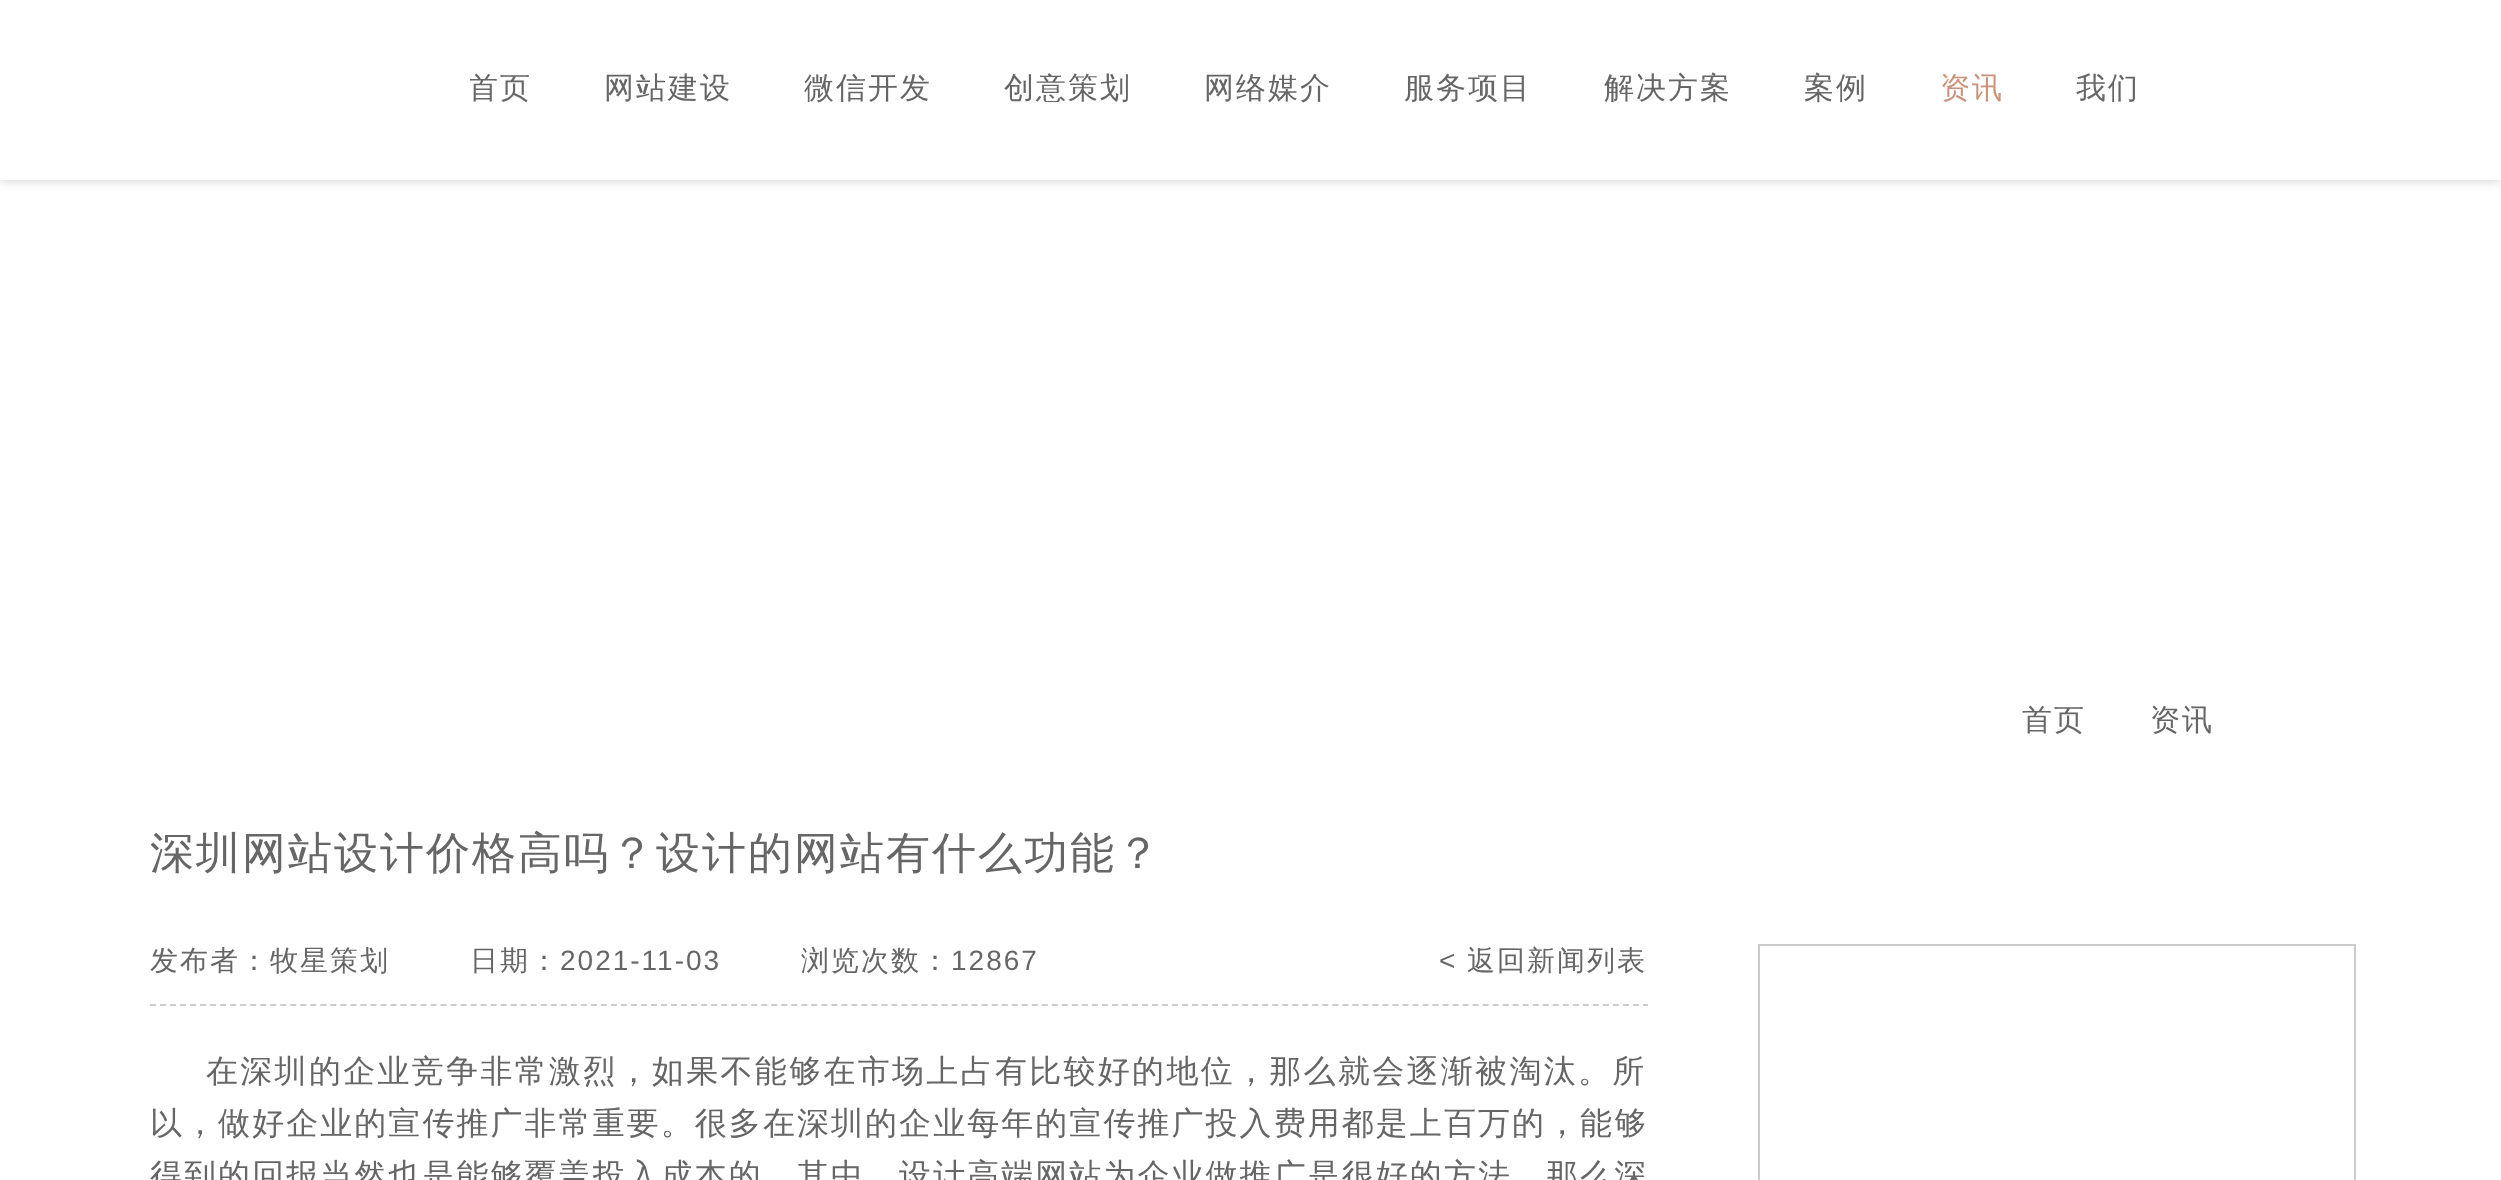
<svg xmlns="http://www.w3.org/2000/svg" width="2501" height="1180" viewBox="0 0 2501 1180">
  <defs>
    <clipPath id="clip1"><rect x="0" y="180" width="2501" height="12"/></clipPath>
    <filter id="blur1" x="-50%" y="-200%" width="200%" height="500%"><feGaussianBlur stdDeviation="6"/></filter>
  </defs>
  <rect width="100%" height="100%" fill="#ffffff"/>
  <g clip-path="url(#clip1)">
    <rect x="0" y="0" width="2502" height="180" fill="#cccccc" filter="url(#blur1)"/>
  </g>
  <text x="468" y="98" font-family="WenQuanYi Zen Hei" font-size="30" font-weight="500" letter-spacing="2" fill="#666666">首页</text>
  <text x="604" y="98" font-family="WenQuanYi Zen Hei" font-size="30" font-weight="500" letter-spacing="2" fill="#666666">网站建设</text>
  <text x="804" y="98" font-family="WenQuanYi Zen Hei" font-size="30" font-weight="500" letter-spacing="2" fill="#666666">微信开发</text>
  <text x="1004" y="98" font-family="WenQuanYi Zen Hei" font-size="30" font-weight="500" letter-spacing="2" fill="#666666">创意策划</text>
  <text x="1204" y="98" font-family="WenQuanYi Zen Hei" font-size="30" font-weight="500" letter-spacing="2" fill="#666666">网络媒介</text>
  <text x="1404" y="98" font-family="WenQuanYi Zen Hei" font-size="30" font-weight="500" letter-spacing="2" fill="#666666">服务项目</text>
  <text x="1604" y="98" font-family="WenQuanYi Zen Hei" font-size="30" font-weight="500" letter-spacing="2" fill="#666666">解决方案</text>
  <text x="1804" y="98" font-family="WenQuanYi Zen Hei" font-size="30" font-weight="500" letter-spacing="2" fill="#666666">案例</text>
  <text x="1940" y="98" font-family="WenQuanYi Zen Hei" font-size="30" font-weight="500" letter-spacing="2" fill="#cd927a">资讯</text>
  <text x="2076" y="98" font-family="WenQuanYi Zen Hei" font-size="30" font-weight="500" letter-spacing="2" fill="#666666">我们</text>
  <rect x="468" y="79" width="2" height="2" fill="#ffffff"/>
  <text x="2022" y="730" font-family="WenQuanYi Zen Hei" font-size="30" font-weight="500" letter-spacing="2" fill="#666666">首页</text>
  <text x="2150" y="730" font-family="WenQuanYi Zen Hei" font-size="30" font-weight="500" letter-spacing="2" fill="#666666">资讯</text>
  <text x="150" y="868" font-family="WenQuanYi Zen Hei" font-size="44" font-weight="500" letter-spacing="2" fill="#666666">深圳网站设计价格高吗？设计的网站有什么功能？</text>
  <path d="M150 1005H1648" fill="none" stroke="#cccccc" stroke-width="2" stroke-dasharray="6 4.02"/>
  <text x="150" y="970" font-family="WenQuanYi Zen Hei" font-size="28" font-weight="500" letter-spacing="2" fill="#666666">发布者：牧星策划</text>
  <text x="470" y="970" font-family="WenQuanYi Zen Hei" font-size="28" font-weight="500" letter-spacing="2" fill="#666666">日期：</text>
  <text x="560" y="970" font-family="Liberation Sans" font-size="28" letter-spacing="2" fill="#666666">2021-11-03</text>
  <text x="801" y="970" font-family="WenQuanYi Zen Hei" font-size="28" font-weight="500" letter-spacing="2" fill="#666666">浏览次数：</text>
  <text x="951" y="970" font-family="Liberation Sans" font-size="28" letter-spacing="2" fill="#666666">12867</text>
  <text x="1439" y="970" font-family="Liberation Sans" font-size="28" letter-spacing="2" fill="#666666">&lt;</text>
  <text x="1467" y="970" font-family="WenQuanYi Zen Hei" font-size="28" font-weight="500" letter-spacing="2" fill="#666666">返回新闻列表</text>
  <text x="206" y="1082" font-family="WenQuanYi Zen Hei" font-size="32" font-weight="500" letter-spacing="2.3" fill="#666666">在深圳的企业竞争非常激烈，如果不能够在市场上占有比较好的地位，那么就会逐渐被淘汰。所</text>
  <text x="150" y="1134" font-family="WenQuanYi Zen Hei" font-size="32" font-weight="500" letter-spacing="2.05" fill="#666666">以，做好企业的宣传推广非常重要。很多在深圳的企业每年的宣传推广投入费用都是上百万的，能够</text>
  <text x="150" y="1186" font-family="WenQuanYi Zen Hei" font-size="32" font-weight="500" letter-spacing="2.05" fill="#666666">得到的回报当然也是能够覆盖投入成本的。其中，设计高端网站为企业做推广是很好的方法，那么深</text>
  <rect x="1759" y="945" width="596" height="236" fill="none" stroke="#cccccc" stroke-width="2"/>
</svg>
